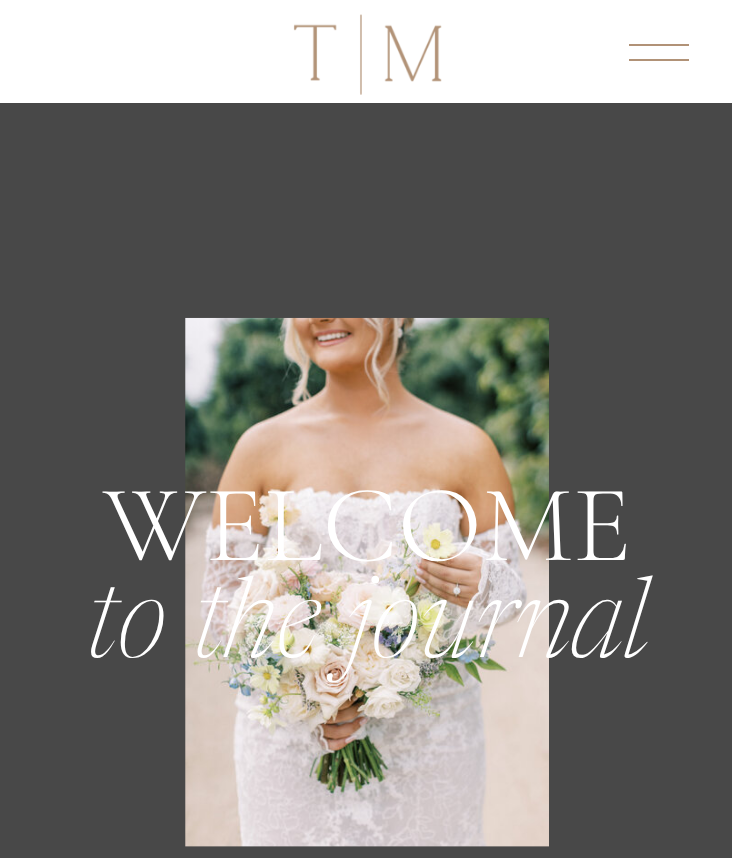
<svg xmlns="http://www.w3.org/2000/svg" width="732" height="858" viewBox="0 0 732 858">
  <rect width="100%" height="100%" fill="#484848"/>
  <rect x="0" y="0" width="732" height="103" fill="#ffffff"/>
  <image x="293" y="14" width="149" height="81" href="img1.png"/>
  <rect x="629" y="44" width="60" height="2" fill="#b19277"/>
  <rect x="629" y="59" width="60" height="2" fill="#b19277"/>
  <image x="185" y="317" width="364" height="530" href="img2.png"/>
  <text x="103" y="560" font-family="Cormorant Garamond" font-size="109.75" font-weight="300" fill="#ffffff">WELCOME</text>
  <text x="86" y="657" font-family="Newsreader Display" font-size="109.75" font-weight="200" font-style="italic" fill="#ffffff">to the journal</text>
</svg>
